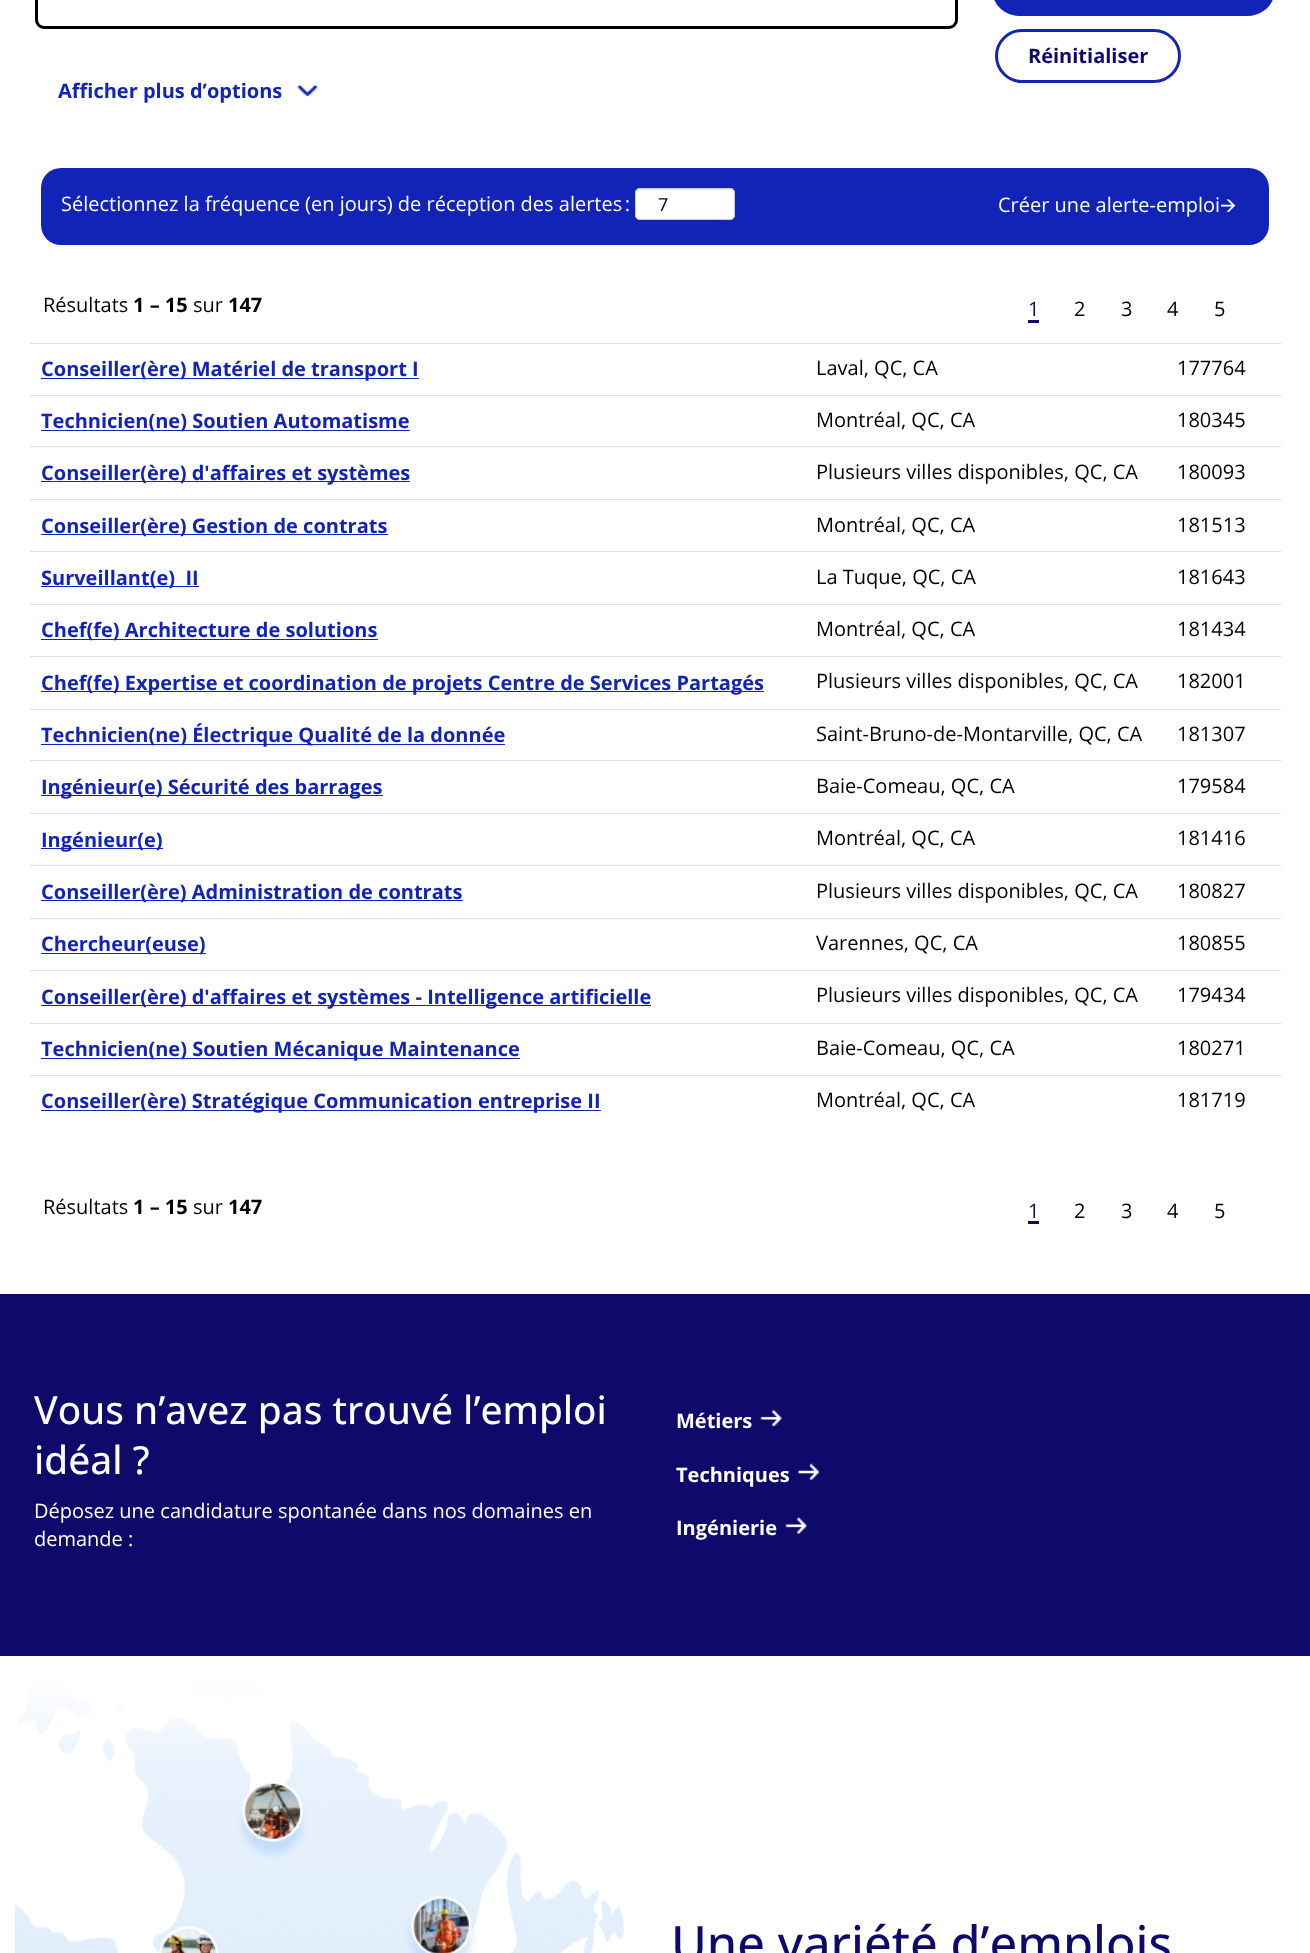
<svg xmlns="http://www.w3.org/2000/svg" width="1310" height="1953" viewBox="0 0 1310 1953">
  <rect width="100%" height="100%" fill="#ffffff"/>
  <rect x="994.5" y="-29.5" width="278" height="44" rx="26" fill="#1224b8" stroke="#1224b8" stroke-width="3"/>
  <rect x="996.5" y="30.5" width="183" height="51" rx="25.5" fill="none" stroke="#1224b8" stroke-width="3"/>
  <text x="1028" y="63" font-family="Open Sans" font-size="20" font-weight="bold" fill="#0f096c">Réinitialiser</text>
  <rect x="36.5" y="-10.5" width="920" height="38" rx="7.5" fill="none" stroke="#000000" stroke-width="3"/>
  <text x="58" y="98" font-family="Open Sans" font-size="20" font-weight="bold" fill="#1224b8">Afficher plus d’options</text>
  <image x="297" y="84" width="21" height="13" href="img1.png"/>
  <rect x="41" y="168" width="1228" height="77" rx="20" fill="#1224b8"/>
  <text x="61" y="211" font-family="Open Sans" font-size="20" fill="#ffffff">Sélectionnez la fréquence (en jours) de réception des alertes :</text>
  <rect x="635" y="188" width="100" height="32" rx="5" fill="#ffffff"/>
  <path d="M640 190H730C732 190 734 192 734 194C734 185 719 189 715 189H655C651 189 636 185 636 194C636 192 638 190 640 190Z" fill="#ececec"/>
  <rect x="635.5" y="188.5" width="99" height="31" rx="4.5" fill="none" stroke="#cccccc"/>
  <text x="658" y="211" font-family="Open Sans" font-size="18" fill="#000000">7</text>
  <text x="998" y="212" font-family="Open Sans" font-size="20" fill="#ffffff">Créer une alerte-emploi</text>
  <text x="1220" y="212" font-family="'Noto Sans Symbols 2'" font-size="20" fill="#ffffff">🡪</text>
  <text x="43" y="312" font-family="Open Sans" font-size="20" fill="#000000">Résultats</text>
  <text x="133" y="312" font-family="Open Sans" font-size="20" font-weight="bold" fill="#000000">1 – 15</text>
  <text x="193" y="312" font-family="Open Sans" font-size="20" fill="#000000">sur</text>
  <text x="228" y="312" font-family="Open Sans" font-size="20" font-weight="bold" fill="#000000">147</text>
  <rect x="1028" y="320" width="11" height="3" fill="#0f096c"/>
  <text x="1028" y="316" font-family="Open Sans" font-size="20" fill="#0f096c">1</text>
  <text x="1074" y="316" font-family="Open Sans" font-size="20" fill="#000000">2</text>
  <text x="1121" y="316" font-family="Open Sans" font-size="20" fill="#000000">3</text>
  <text x="1167" y="316" font-family="Open Sans" font-size="20" fill="#000000">4</text>
  <text x="1214" y="316" font-family="Open Sans" font-size="20" fill="#000000">5</text>
  <rect x="30" y="343" width="1251" height="1" fill="#dddddd"/>
  <rect x="41" y="378" width="378" height="1" fill="#1224b8"/>
  <text x="41" y="376" font-family="Open Sans" font-size="20" font-weight="bold" fill="#1224b8">Conseiller(ère) Matériel de transport I</text>
  <text x="816" y="375" font-family="Open Sans" font-size="20" fill="#000000">Laval, QC, CA</text>
  <text x="1177" y="375" font-family="Open Sans" font-size="20" fill="#000000">177764</text>
  <rect x="30" y="395" width="1251" height="1" fill="#dddddd"/>
  <rect x="41" y="430" width="369" height="1" fill="#1224b8"/>
  <text x="41" y="428" font-family="Open Sans" font-size="20" font-weight="bold" fill="#1224b8">Technicien(ne) Soutien Automatisme</text>
  <text x="816" y="427" font-family="Open Sans" font-size="20" fill="#000000">Montréal, QC, CA</text>
  <text x="1177" y="427" font-family="Open Sans" font-size="20" fill="#000000">180345</text>
  <rect x="30" y="446" width="1251" height="1" fill="#dddddd"/>
  <rect x="41" y="481" width="369" height="1" fill="#1224b8"/>
  <text x="41" y="480" font-family="Open Sans" font-size="20" font-weight="bold" fill="#1224b8">Conseiller(ère) d'affaires et systèmes</text>
  <text x="816" y="479" font-family="Open Sans" font-size="20" fill="#000000">Plusieurs villes disponibles, QC, CA</text>
  <text x="1177" y="479" font-family="Open Sans" font-size="20" fill="#000000">180093</text>
  <rect x="30" y="499" width="1251" height="1" fill="#dddddd"/>
  <rect x="41" y="534" width="347" height="1" fill="#1224b8"/>
  <text x="41" y="533" font-family="Open Sans" font-size="20" font-weight="bold" fill="#1224b8">Conseiller(ère) Gestion de contrats</text>
  <text x="816" y="532" font-family="Open Sans" font-size="20" fill="#000000">Montréal, QC, CA</text>
  <text x="1177" y="532" font-family="Open Sans" font-size="20" fill="#000000">181513</text>
  <rect x="30" y="551" width="1251" height="1" fill="#dddddd"/>
  <rect x="41" y="586" width="158" height="1" fill="#1224b8"/>
  <text x="41" y="585" font-family="Open Sans" font-size="20" font-weight="bold" fill="#1224b8" xml:space="preserve">Surveillant(e)  II</text>
  <text x="816" y="584" font-family="Open Sans" font-size="20" fill="#000000">La Tuque, QC, CA</text>
  <text x="1177" y="584" font-family="Open Sans" font-size="20" fill="#000000">181643</text>
  <rect x="30" y="604" width="1251" height="1" fill="#dddddd"/>
  <rect x="41" y="639" width="337" height="1" fill="#1224b8"/>
  <text x="41" y="637" font-family="Open Sans" font-size="20" font-weight="bold" fill="#1224b8">Chef(fe) Architecture de solutions</text>
  <text x="816" y="636" font-family="Open Sans" font-size="20" fill="#000000">Montréal, QC, CA</text>
  <text x="1177" y="636" font-family="Open Sans" font-size="20" fill="#000000">181434</text>
  <rect x="30" y="656" width="1251" height="1" fill="#dddddd"/>
  <rect x="41" y="691" width="723" height="1" fill="#1224b8"/>
  <text x="41" y="690" font-family="Open Sans" font-size="20" font-weight="bold" fill="#1224b8">Chef(fe) Expertise et coordination de projets Centre de Services Partagés</text>
  <text x="816" y="688" font-family="Open Sans" font-size="20" fill="#000000">Plusieurs villes disponibles, QC, CA</text>
  <text x="1177" y="688" font-family="Open Sans" font-size="20" fill="#000000">182001</text>
  <rect x="30" y="709" width="1251" height="1" fill="#dddddd"/>
  <rect x="41" y="744" width="464" height="1" fill="#1224b8"/>
  <text x="41" y="742" font-family="Open Sans" font-size="20" font-weight="bold" fill="#1224b8">Technicien(ne) Électrique Qualité de la donnée</text>
  <text x="816" y="741" font-family="Open Sans" font-size="20" fill="#000000">Saint-Bruno-de-Montarville, QC, CA</text>
  <text x="1177" y="741" font-family="Open Sans" font-size="20" fill="#000000">181307</text>
  <rect x="30" y="760" width="1251" height="1" fill="#dddddd"/>
  <rect x="41" y="795" width="342" height="1" fill="#1224b8"/>
  <text x="41" y="794" font-family="Open Sans" font-size="20" font-weight="bold" fill="#1224b8">Ingénieur(e) Sécurité des barrages</text>
  <text x="816" y="793" font-family="Open Sans" font-size="20" fill="#000000">Baie-Comeau, QC, CA</text>
  <text x="1177" y="793" font-family="Open Sans" font-size="20" fill="#000000">179584</text>
  <rect x="30" y="813" width="1251" height="1" fill="#dddddd"/>
  <rect x="41" y="848" width="122" height="1" fill="#1224b8"/>
  <text x="41" y="847" font-family="Open Sans" font-size="20" font-weight="bold" fill="#1224b8">Ingénieur(e)</text>
  <text x="816" y="845" font-family="Open Sans" font-size="20" fill="#000000">Montréal, QC, CA</text>
  <text x="1177" y="845" font-family="Open Sans" font-size="20" fill="#000000">181416</text>
  <rect x="30" y="865" width="1251" height="1" fill="#dddddd"/>
  <rect x="41" y="900" width="422" height="1" fill="#1224b8"/>
  <text x="41" y="899" font-family="Open Sans" font-size="20" font-weight="bold" fill="#1224b8">Conseiller(ère) Administration de contrats</text>
  <text x="816" y="898" font-family="Open Sans" font-size="20" fill="#000000">Plusieurs villes disponibles, QC, CA</text>
  <text x="1177" y="898" font-family="Open Sans" font-size="20" fill="#000000">180827</text>
  <rect x="30" y="918" width="1251" height="1" fill="#dddddd"/>
  <rect x="41" y="953" width="165" height="1" fill="#1224b8"/>
  <text x="41" y="951" font-family="Open Sans" font-size="20" font-weight="bold" fill="#1224b8">Chercheur(euse)</text>
  <text x="816" y="950" font-family="Open Sans" font-size="20" fill="#000000">Varennes, QC, CA</text>
  <text x="1177" y="950" font-family="Open Sans" font-size="20" fill="#000000">180855</text>
  <rect x="30" y="970" width="1251" height="1" fill="#dddddd"/>
  <rect x="41" y="1005" width="610" height="1" fill="#1224b8"/>
  <text x="41" y="1004" font-family="Open Sans" font-size="20" font-weight="bold" fill="#1224b8">Conseiller(ère) d'affaires et systèmes - Intelligence artificielle</text>
  <text x="816" y="1002" font-family="Open Sans" font-size="20" fill="#000000">Plusieurs villes disponibles, QC, CA</text>
  <text x="1177" y="1002" font-family="Open Sans" font-size="20" fill="#000000">179434</text>
  <rect x="30" y="1023" width="1251" height="1" fill="#dddddd"/>
  <rect x="41" y="1058" width="479" height="1" fill="#1224b8"/>
  <text x="41" y="1056" font-family="Open Sans" font-size="20" font-weight="bold" fill="#1224b8">Technicien(ne) Soutien Mécanique Maintenance</text>
  <text x="816" y="1055" font-family="Open Sans" font-size="20" fill="#000000">Baie-Comeau, QC, CA</text>
  <text x="1177" y="1055" font-family="Open Sans" font-size="20" fill="#000000">180271</text>
  <rect x="30" y="1075" width="1251" height="1" fill="#dddddd"/>
  <rect x="41" y="1110" width="560" height="1" fill="#1224b8"/>
  <text x="41" y="1108" font-family="Open Sans" font-size="20" font-weight="bold" fill="#1224b8">Conseiller(ère) Stratégique Communication entreprise II</text>
  <text x="816" y="1107" font-family="Open Sans" font-size="20" fill="#000000">Montréal, QC, CA</text>
  <text x="1177" y="1107" font-family="Open Sans" font-size="20" fill="#000000">181719</text>
  <text x="43" y="1214" font-family="Open Sans" font-size="20" fill="#000000">Résultats</text>
  <text x="133" y="1214" font-family="Open Sans" font-size="20" font-weight="bold" fill="#000000">1 – 15</text>
  <text x="193" y="1214" font-family="Open Sans" font-size="20" fill="#000000">sur</text>
  <text x="228" y="1214" font-family="Open Sans" font-size="20" font-weight="bold" fill="#000000">147</text>
  <rect x="1028" y="1221" width="11" height="3" fill="#0f096c"/>
  <text x="1028" y="1218" font-family="Open Sans" font-size="20" fill="#0f096c">1</text>
  <text x="1074" y="1218" font-family="Open Sans" font-size="20" fill="#000000">2</text>
  <text x="1121" y="1218" font-family="Open Sans" font-size="20" fill="#000000">3</text>
  <text x="1167" y="1218" font-family="Open Sans" font-size="20" fill="#000000">4</text>
  <text x="1214" y="1218" font-family="Open Sans" font-size="20" fill="#000000">5</text>
  <rect x="0" y="1294" width="1310" height="362" fill="#0f096c"/>
  <text x="34" y="1424" font-family="Open Sans" font-size="38.75" font-weight="500" fill="#ffffff">Vous n’avez pas trouvé l’emploi</text>
  <text x="34" y="1474" font-family="Open Sans" font-size="38.75" font-weight="500" fill="#ffffff">idéal ?</text>
  <text x="34" y="1518" font-family="Open Sans" font-size="20" fill="#ffffff">Déposez une candidature spontanée dans nos domaines en</text>
  <text x="34" y="1546" font-family="Open Sans" font-size="20" fill="#ffffff">demande :</text>
  <text x="676" y="1428" font-family="Open Sans" font-size="20" font-weight="bold" fill="#ffffff">Métiers</text>
  <image x="760" y="1409" width="23" height="18" href="img2.png"/>
  <text x="676" y="1482" font-family="Open Sans" font-size="20" font-weight="bold" fill="#ffffff">Techniques</text>
  <image x="797" y="1463" width="23" height="18" href="img3.png"/>
  <text x="676" y="1535" font-family="Open Sans" font-size="20" font-weight="bold" fill="#ffffff">Ingénierie</text>
  <image x="785" y="1517" width="23" height="18" href="img4.png"/>
  <image x="15" y="1685" width="609" height="268" href="img5.png"/>
  <text x="671" y="1961" font-family="Open Sans" font-size="48.75" font-weight="500" fill="#0f096c">Une variété d’emplois</text>
</svg>
